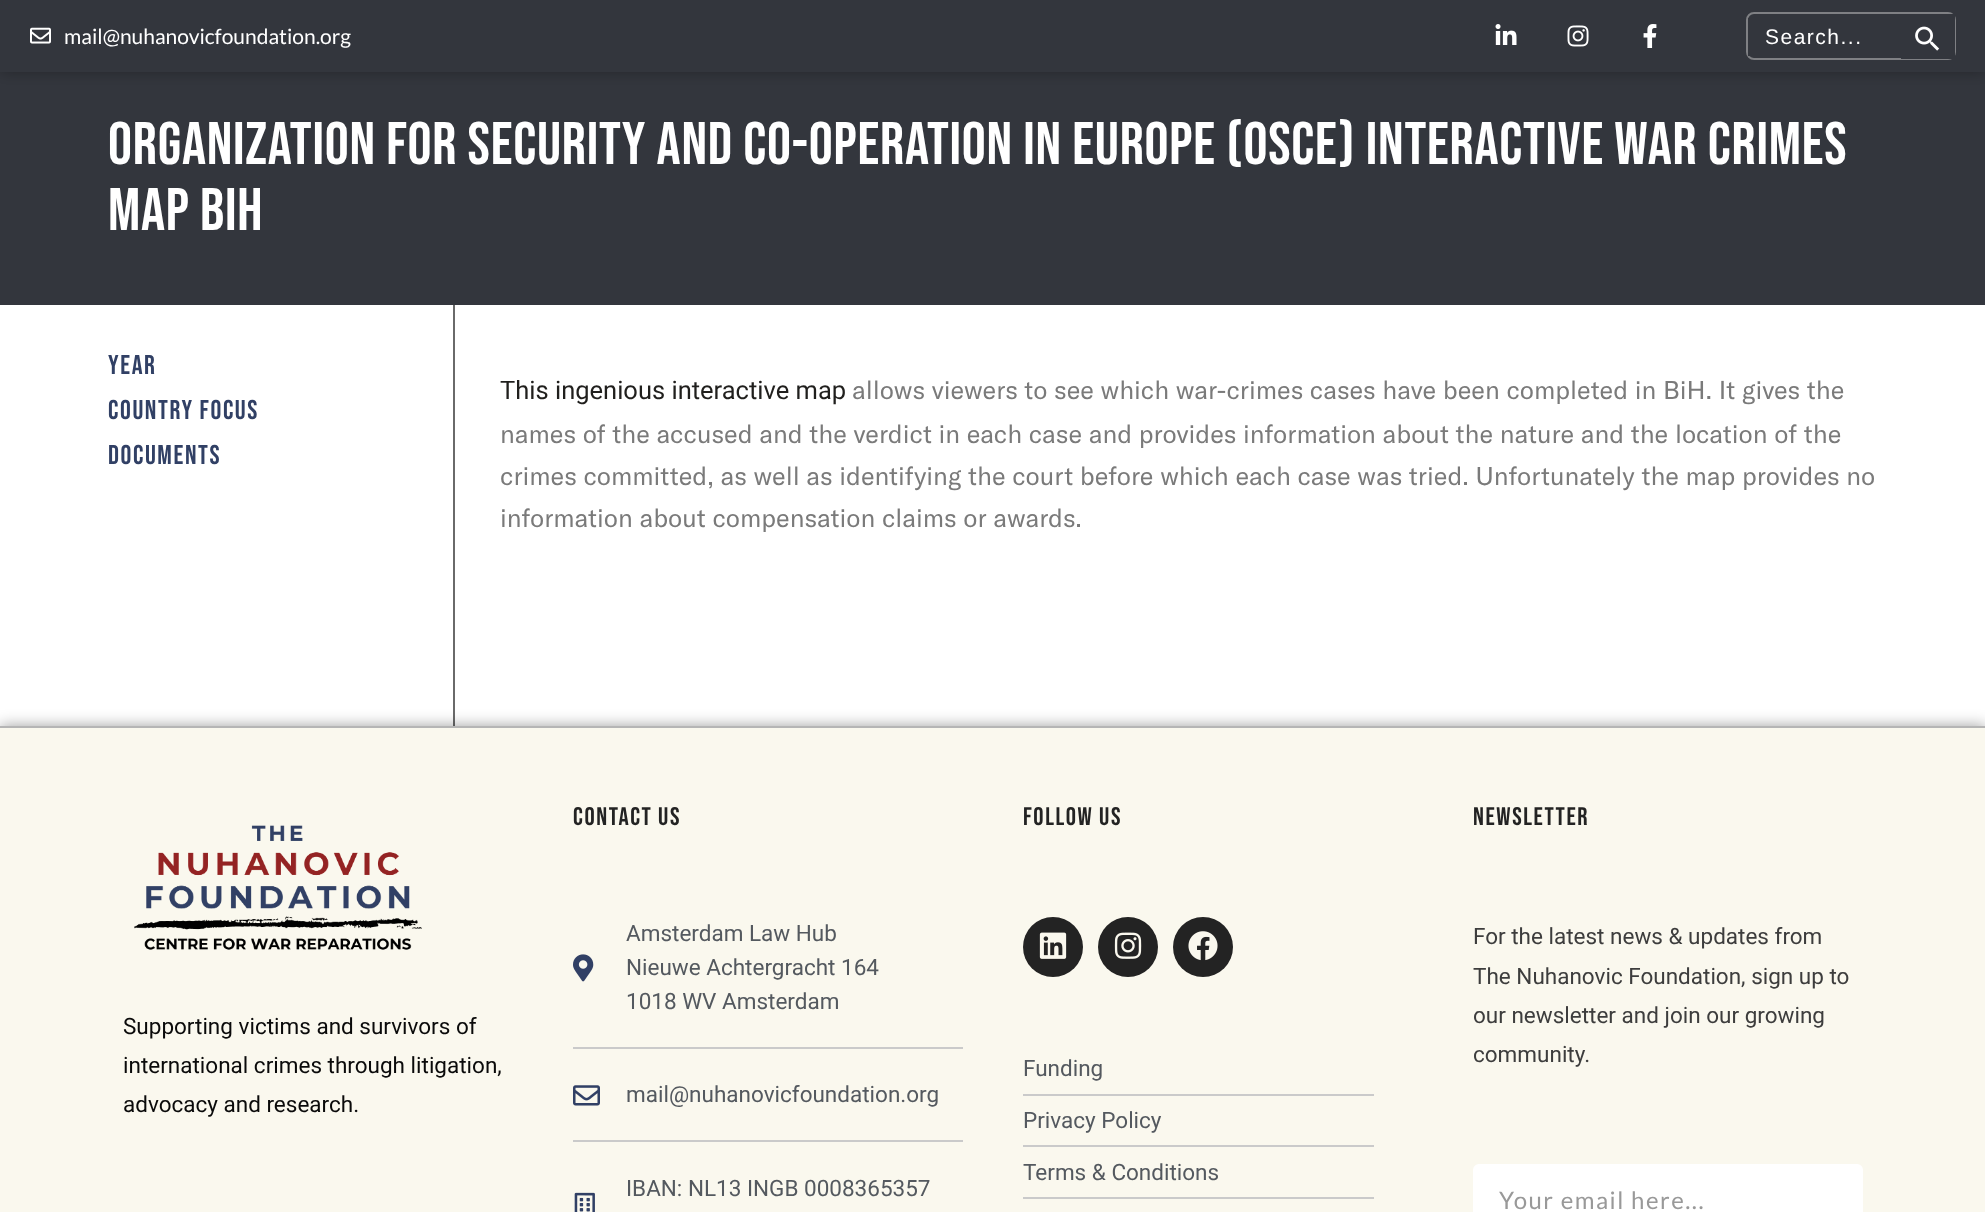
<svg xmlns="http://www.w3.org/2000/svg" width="1985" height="1212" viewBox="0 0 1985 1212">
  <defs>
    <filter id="blur1" x="-50%" y="-200%" width="200%" height="500%"><feGaussianBlur stdDeviation="7.5"/></filter>
  </defs>
  <rect width="100%" height="100%" fill="#33363d"/>
  <rect x="0" y="0" width="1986" height="72" fill="#000000" fill-opacity="0.3" filter="url(#blur1)"/>
  <rect x="0" y="0" width="1985" height="72" fill="#33363d"/>
  <image x="30" y="27" width="21" height="17" href="img1.png"/>
  <text x="64" y="44" font-family="Lato" font-size="21" fill="#ffffff">mail@nuhanovicfoundation.org</text>
  <image x="1495" y="24" width="22" height="21" href="img2.png"/>
  <image x="1567" y="25" width="22" height="22" href="img3.png"/>
  <image x="1643" y="24" width="14" height="24" href="img4.png"/>
  <rect x="1747" y="13" width="208" height="46" rx="7" fill="none" stroke="#7f8084" stroke-width="2"/>
  <rect x="1748" y="18" width="2" height="38" fill="#33363d"/>
  <text x="1765" y="44" font-family="Liberation Sans" font-size="21" letter-spacing="1.5" fill="#ffffff">Search...</text>
  <rect x="1901" y="14" width="54" height="45" fill="#33363d"/>
  <image x="1915" y="26" width="25" height="25" href="img5.png"/>
  <text x="108" y="164" font-family="Bebas Neue" font-size="60" letter-spacing="0.75" fill="#ffffff">ORGANIZATION FOR SECURITY AND CO-OPERATION IN EUROPE (OSCE) INTERACTIVE WAR CRIMES</text>
  <text x="108" y="230" font-family="Bebas Neue" font-size="60" letter-spacing="0.75" fill="#ffffff">MAP BIH</text>
  <rect x="0" y="305" width="1985" height="421" fill="#ffffff"/>
  <text x="108" y="374" font-family="Bebas Neue" font-size="27" letter-spacing="1.6" fill="#314065">YEAR</text>
  <text x="108" y="419" font-family="Bebas Neue" font-size="27" letter-spacing="1.6" fill="#314065">COUNTRY FOCUS</text>
  <text x="108" y="464" font-family="Bebas Neue" font-size="27" letter-spacing="1.6" fill="#314065">DOCUMENTS</text>
  <rect x="453" y="305" width="2" height="421" fill="#6a6a6a"/>
  <text x="500" y="399" font-family="Roboto" font-size="25.5" fill="#201f1d">This ingenious interactive map</text>
  <text x="852" y="399" font-family="GT America" font-size="25.5" fill="#7a7a7a">allows viewers to see which war-crimes cases have been completed in BiH. It gives the</text>
  <text x="500" y="443" font-family="GT America" font-size="25.5" fill="#7a7a7a">names of the accused and the verdict in each case and provides information about the nature and the location of the</text>
  <text x="500" y="485" font-family="GT America" font-size="25.5" fill="#7a7a7a">crimes committed, as well as identifying the court before which each case was tried. Unfortunately the map provides no</text>
  <text x="500" y="527" font-family="GT America" font-size="25.5" fill="#7a7a7a">information about compensation claims or awards.</text>
  <rect x="0" y="726" width="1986" height="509" fill="#000000" fill-opacity="0.38" filter="url(#blur1)"/>
  <rect x="0" y="728" width="1985" height="484" fill="#faf8ee"/>
  <rect x="0" y="726" width="1985" height="2" fill="#b5b5b5"/>
  <image x="134" y="825" width="288" height="125" href="img6.png"/>
  <text x="123" y="1034" font-family="Roboto" font-size="22.5" fill="#0a0a0a">Supporting victims and survivors of</text>
  <text x="123" y="1073" font-family="Roboto" font-size="22.5" fill="#0a0a0a">international crimes through litigation,</text>
  <text x="123" y="1112" font-family="Roboto" font-size="22.5" fill="#0a0a0a">advocacy and research.</text>
  <text x="573" y="825" font-family="Bebas Neue" font-size="25.5" letter-spacing="1.6" fill="#232323">CONTACT US</text>
  <image x="573" y="954" width="21" height="28" href="img7.png"/>
  <text x="626" y="941" font-family="Roboto" font-size="22.5" fill="#54595f">Amsterdam Law Hub</text>
  <text x="626" y="975" font-family="Roboto" font-size="22.5" fill="#54595f">Nieuwe Achtergracht 164</text>
  <text x="626" y="1009" font-family="Roboto" font-size="22.5" fill="#54595f">1018 WV Amsterdam</text>
  <rect x="573" y="1047" width="390" height="2" fill="#cacaca"/>
  <image x="573" y="1085" width="27" height="21" href="img8.png"/>
  <text x="626" y="1102" font-family="Roboto" font-size="22.5" fill="#54595f">mail@nuhanovicfoundation.org</text>
  <rect x="573" y="1140" width="390" height="2" fill="#cacaca"/>
  <text x="626" y="1196" font-family="Roboto" font-size="22.5" fill="#54595f">IBAN: NL13 INGB 0008365357</text>
  <image x="574" y="1192" width="21" height="20" href="img9.png"/>
  <text x="1023" y="825" font-family="Bebas Neue" font-size="25.5" letter-spacing="1.6" fill="#232323">FOLLOW US</text>
  <circle cx="1053" cy="947" r="30" fill="#232323"/>
  <image x="1039" y="932" width="28" height="27" href="img10.png"/>
  <circle cx="1128" cy="947" r="30" fill="#232323"/>
  <image x="1114" y="932" width="28" height="27" href="img11.png"/>
  <circle cx="1203" cy="947" r="30" fill="#232323"/>
  <image x="1188" y="931" width="30" height="30" href="img12.png"/>
  <text x="1023" y="1076" font-family="Roboto" font-size="22.5" fill="#54595f">Funding</text>
  <rect x="1023" y="1094" width="351" height="2" fill="#cacaca"/>
  <text x="1023" y="1128" font-family="Roboto" font-size="22.5" fill="#54595f">Privacy Policy</text>
  <rect x="1023" y="1145" width="351" height="2" fill="#cacaca"/>
  <text x="1023" y="1180" font-family="Roboto" font-size="22.5" fill="#54595f">Terms &amp; Conditions</text>
  <rect x="1023" y="1197" width="351" height="2" fill="#cacaca"/>
  <text x="1473" y="825" font-family="Bebas Neue" font-size="25.5" letter-spacing="1.6" fill="#232323">NEWSLETTER</text>
  <text x="1473" y="944" font-family="Roboto" font-size="22.5" fill="#3d3d3d">For the latest news &amp; updates from</text>
  <text x="1473" y="984" font-family="Roboto" font-size="22.5" fill="#3d3d3d">The Nuhanovic Foundation, sign up to</text>
  <text x="1473" y="1023" font-family="Roboto" font-size="22.5" fill="#3d3d3d">our newsletter and join our growing</text>
  <text x="1473" y="1062" font-family="Roboto" font-size="22.5" fill="#3d3d3d">community.</text>
  <rect x="1474" y="1165" width="388" height="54" rx="5" fill="#ffffff" stroke="#ffffff" stroke-width="2"/>
  <text x="1499" y="1209" font-family="Lato" font-size="24" letter-spacing="1.5" fill="#999999">Your email here...</text>
</svg>
